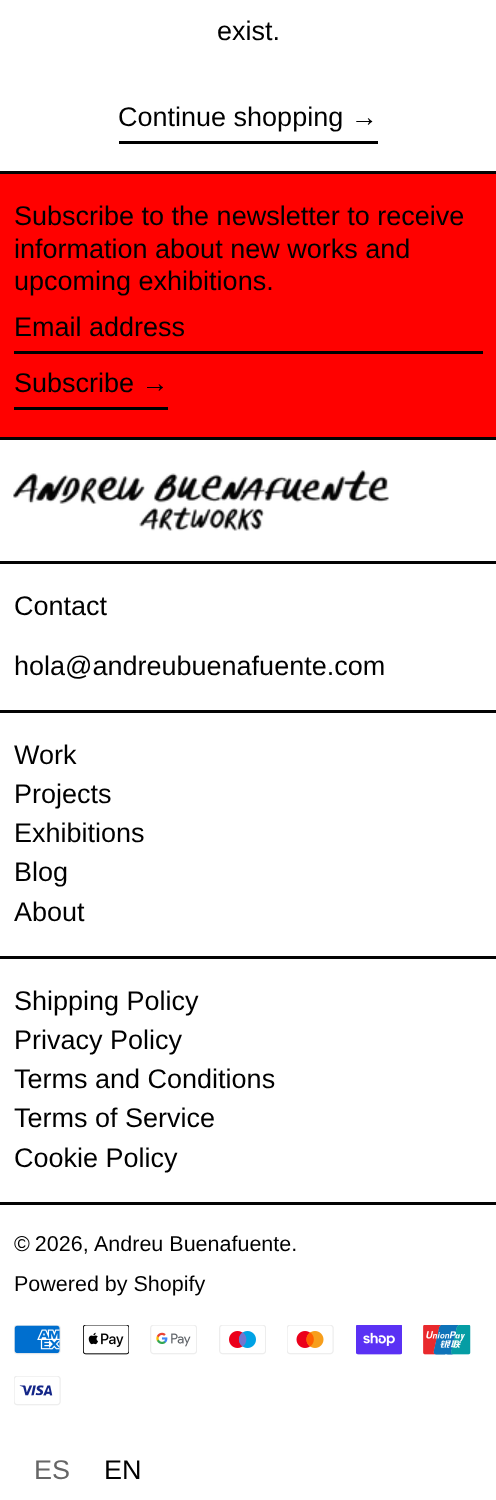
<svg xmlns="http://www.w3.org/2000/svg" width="496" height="1500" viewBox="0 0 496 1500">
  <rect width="100%" height="100%" fill="#ffffff"/>
  <text x="217" y="40" font-family="Liberation Sans" font-size="27" fill="#000000">exist.</text>
  <rect x="119" y="141" width="259" height="3" fill="#000000"/>
  <text x="118" y="126" font-family="Liberation Sans" font-size="27" fill="#000000">Continue shopping →</text>
  <rect x="0" y="174" width="496" height="263" fill="#ff0100"/>
  <rect x="0" y="171" width="496" height="3" fill="#030303"/>
  <text x="14" y="225" font-family="Liberation Sans" font-size="27" fill="#000000">Subscribe to the newsletter to receive</text>
  <text x="14" y="258" font-family="Liberation Sans" font-size="27" fill="#000000">information about new works and</text>
  <text x="14" y="290" font-family="Liberation Sans" font-size="27" fill="#000000">upcoming exhibitions.</text>
  <rect x="14" y="351" width="469" height="3" fill="#000000"/>
  <text x="14" y="336" font-family="Liberation Sans" font-size="27" fill="#000000">Email address</text>
  <rect x="14" y="407" width="154" height="3" fill="#000000"/>
  <text x="14" y="392" font-family="Liberation Sans" font-size="27" fill="#000000">Subscribe →</text>
  <rect x="0" y="437" width="496" height="3" fill="#030303"/>
  <rect x="0" y="561" width="496" height="398" fill="#030303"/>
  <image x="13" y="470" width="376" height="61" href="img1.png"/>
  <rect x="0" y="564" width="496" height="146" fill="#ffffff"/>
  <text x="14" y="615" font-family="Liberation Sans" font-size="27" fill="#000000">Contact</text>
  <text x="14" y="675" font-family="Liberation Sans" font-size="27" fill="#000000">hola@andreubuenafuente.com</text>
  <rect x="0" y="713" width="496" height="243" fill="#ffffff"/>
  <text x="14" y="764" font-family="Liberation Sans" font-size="27" fill="#000000">Work</text>
  <text x="14" y="803" font-family="Liberation Sans" font-size="27" fill="#000000">Projects</text>
  <text x="14" y="842" font-family="Liberation Sans" font-size="27" fill="#000000">Exhibitions</text>
  <text x="14" y="881" font-family="Liberation Sans" font-size="27" fill="#000000">Blog</text>
  <text x="14" y="921" font-family="Liberation Sans" font-size="27" fill="#000000">About</text>
  <text x="14" y="1010" font-family="Liberation Sans" font-size="27" fill="#000000">Shipping Policy</text>
  <text x="14" y="1049" font-family="Liberation Sans" font-size="27" fill="#000000">Privacy Policy</text>
  <text x="14" y="1088" font-family="Liberation Sans" font-size="27" fill="#000000">Terms and Conditions</text>
  <text x="14" y="1127" font-family="Liberation Sans" font-size="27" fill="#000000">Terms of Service</text>
  <text x="14" y="1167" font-family="Liberation Sans" font-size="27" fill="#000000">Cookie Policy</text>
  <rect x="0" y="1202" width="496" height="3" fill="#030303"/>
  <text x="14" y="1251" word-spacing="-1" font-family="Liberation Sans" font-size="21.5" fill="#000000">© 2026,</text>
  <text x="94" y="1251" font-family="Liberation Sans" font-size="21.5" fill="#000000">Andreu Buenafuente.</text>
  <text x="14" y="1291" font-family="Liberation Sans" font-size="21.5" fill="#000000">Powered by Shopify</text>
  <image x="14" y="1325" width="47" height="30" href="img2.png"/>
  <image x="83" y="1325" width="46" height="30" href="img3.png"/>
  <image x="150" y="1325" width="47" height="30" href="img4.png"/>
  <image x="219" y="1325" width="47" height="30" href="img5.png"/>
  <image x="287" y="1325" width="47" height="30" href="img6.png"/>
  <image x="356" y="1325" width="46" height="30" href="img7.png"/>
  <image x="423" y="1325" width="48" height="30" href="img8.png"/>
  <image x="14" y="1376" width="47" height="30" href="img9.png"/>
  <text x="34" y="1479" font-family="Liberation Sans" font-size="27" fill="#666666">ES</text>
  <text x="104" y="1479" font-family="Liberation Sans" font-size="27" fill="#000000">EN</text>
</svg>
